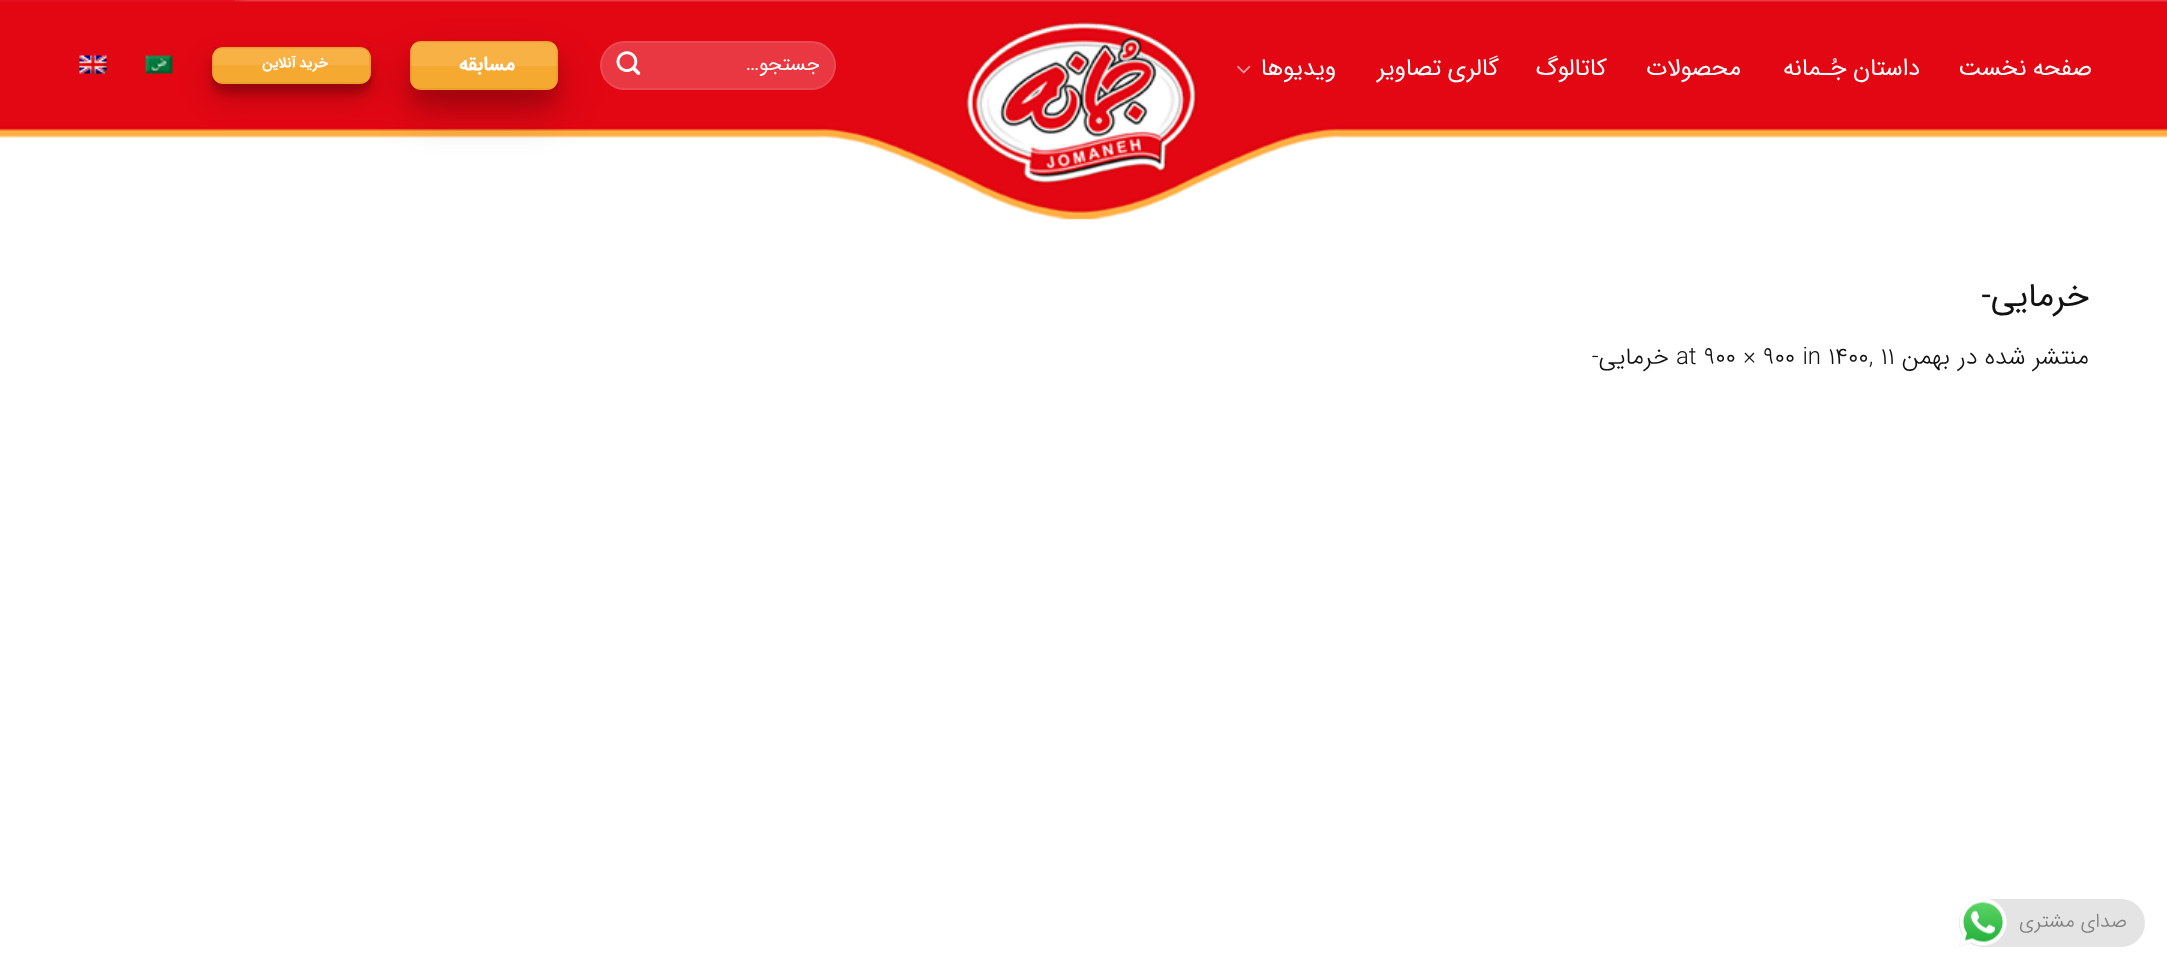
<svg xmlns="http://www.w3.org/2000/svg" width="2167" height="968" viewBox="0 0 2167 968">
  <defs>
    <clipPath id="clip1"><rect x="623" y="50" width="196" height="31"/></clipPath>
    <filter id="blur1" x="-50%" y="-200%" width="200%" height="500%"><feGaussianBlur stdDeviation="7.5"/></filter>
    <filter id="blur2" x="-50%" y="-200%" width="200%" height="500%"><feGaussianBlur stdDeviation="21"/></filter>
    <filter id="blur3" x="-50%" y="-200%" width="200%" height="500%"><feGaussianBlur stdDeviation="4.5"/></filter>
    <filter id="blur4" x="-50%" y="-200%" width="200%" height="500%"><feGaussianBlur stdDeviation="15"/></filter>
  </defs>
  <rect width="100%" height="100%" fill="#ffffff"/>
  <image x="0" y="0" width="2167" height="220" href="img1.png"/>
  <text x="2092" y="75" word-spacing="-1" font-family="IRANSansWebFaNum" font-size="24" letter-spacing="0.5" direction="rtl" fill="#ffffff">صفحه نخست</text>
  <text x="1920" y="75" word-spacing="-1" font-family="IRANSansWebFaNum" font-size="24" letter-spacing="0.5" direction="rtl" fill="#ffffff">داستان جُـمانه</text>
  <text x="1741" y="75" font-family="IRANSansWebFaNum" font-size="24" letter-spacing="0.5" direction="rtl" fill="#ffffff">محصولات</text>
  <text x="1607" y="75" font-family="IRANSansWebFaNum" font-size="24" letter-spacing="0.5" direction="rtl" fill="#ffffff">کاتالوگ</text>
  <text x="1499" y="75" word-spacing="-1" font-family="IRANSansWebFaNum" font-size="24" letter-spacing="0.5" direction="rtl" fill="#ffffff">گالری تصاویر</text>
  <text x="1336" y="75" font-family="IRANSansWebFaNum" font-size="24" letter-spacing="0.5" direction="rtl" fill="#ffffff">ویدیوها</text>
  <image x="1237" y="65" width="14" height="9" href="img2.png"/>
  <rect x="600" y="41" width="236" height="49" rx="24.5" fill="#e93842"/>
  <rect x="601" y="42" width="234" height="47" rx="23.5" fill="none" stroke="#ffffff" stroke-opacity="0.09" stroke-width="2"/>
  <g clip-path="url(#clip1)">
    <text x="820" y="70" font-family="IRANSansWebFaNum" font-size="20" direction="rtl" fill="#ffffff">جستجو…</text>
  </g>
  <image x="616" y="51" width="25" height="24" href="img3.png"/>
  <rect x="410" y="56" width="148" height="49" rx="11" fill="#000000" fill-opacity="0.1" filter="url(#blur1)"/>
  <rect x="410" y="62" width="148" height="49" rx="11" fill="#000000" fill-opacity="0.25" filter="url(#blur2)"/>
  <rect x="410" y="41" width="148" height="49" rx="11" fill="#f6a930"/>
  <rect x="411" y="42" width="146" height="47" fill="none" stroke="#000000" stroke-opacity="0.05" stroke-width="2"/>
  <path d="M420 42H548C553 42 557 46 557 51V66H411V51C411 46 415 42 420 42Z" fill="#ffffff" fill-opacity="0.1"/>
  <text x="515" y="70" font-family="IRANSansWebFaNum" font-size="20" font-weight="bold" letter-spacing="0.5" direction="rtl" fill="#ffffff">مسابقه</text>
  <rect x="212" y="56" width="159" height="37" rx="11" fill="#000000" fill-opacity="0.22" filter="url(#blur3)"/>
  <rect x="212" y="62" width="159" height="37" rx="11" fill="#000000" fill-opacity="0.19" filter="url(#blur4)"/>
  <rect x="212" y="47" width="159" height="37" rx="11" fill="#f6a930"/>
  <rect x="213" y="48" width="157" height="35" fill="none" stroke="#000000" stroke-opacity="0.05" stroke-width="2"/>
  <path d="M222 48H360C365 48 369 52 369 57V65H213V57C213 52 217 48 222 48Z" fill="#ffffff" fill-opacity="0.1"/>
  <text x="328" y="67" word-spacing="-1" font-family="IRANSansWebFaNum" font-size="14.25" font-weight="bold" letter-spacing="0.5" direction="rtl" fill="#ffffff">خرید آنلاین</text>
  <image x="145" y="55" width="28" height="19" href="img4.png"/>
  <image x="79" y="55" width="28" height="19" href="img5.png"/>
  <text x="2089" y="306" font-family="IRANSansWebFaNum" font-size="33.5" direction="rtl" fill="#111111">خرمایی-</text>
  <text x="2089" y="364" font-family="IRANSansWebFaNum" font-size="24" font-weight="300" direction="rtl" fill="#111111">منتشر شده در</text>
  <text x="1950" y="364" font-family="IRANSansWebFaNum" font-size="24" font-weight="300" direction="rtl" fill="#111111">بهمن</text>
  <text x="1828" y="364" font-family="IRANSansWebFaNum" font-size="24" font-weight="300" fill="#111111">1400, 11</text>
  <text x="1676" y="364" font-family="IRANSansWebFaNum" font-size="24" font-weight="300" fill="#111111">at 900 × 900 in</text>
  <text x="1669" y="364" font-family="IRANSansWebFaNum" font-size="24" font-weight="300" direction="rtl" fill="#111111">خرمایی-</text>
  <rect x="1959" y="899" width="186" height="48" rx="24" fill="#e4e4e4"/>
  <text x="2127" y="927" font-family="IRANSansWebFaNum" font-size="19.5" font-weight="300" direction="rtl" fill="#7f7d7d">صدای مشتری</text>
  <image x="1959" y="898" width="48" height="49" href="img6.png"/>
</svg>
